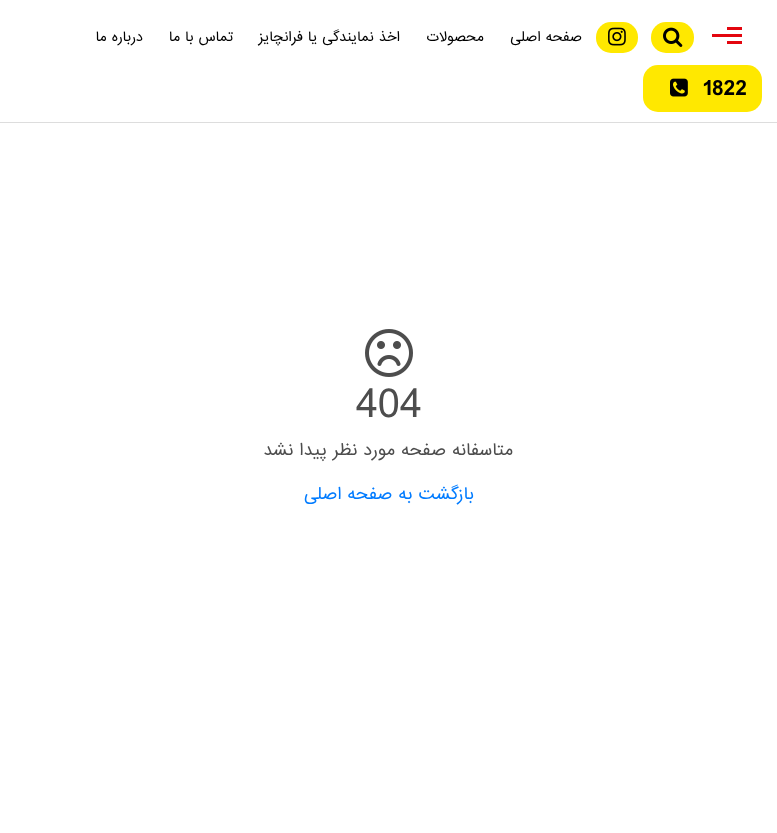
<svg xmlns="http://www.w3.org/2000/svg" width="777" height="833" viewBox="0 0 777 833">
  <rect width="100%" height="100%" fill="#ffffff"/>
  <rect x="0" y="122" width="777" height="1" fill="#dddddd"/>
  <rect x="727" y="27" width="15" height="3" fill="#e3060f"/>
  <rect x="712" y="34" width="30" height="3" fill="#e3060f"/>
  <rect x="727" y="41" width="15" height="3" fill="#e3060f"/>
  <rect x="651" y="22" width="43" height="31" rx="15" fill="#ffe800"/>
  <image x="663" y="27" width="20" height="20" href="img1.png"/>
  <rect x="596" y="22" width="42" height="31" rx="15" fill="#ffe800"/>
  <image x="608" y="27" width="18" height="19" href="img2.png"/>
  <text x="582" y="41" font-family="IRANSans" font-size="13" direction="rtl" fill="#000000">صفحه اصلی</text>
  <text x="484" y="41" font-family="IRANSans" font-size="13" direction="rtl" fill="#000000">محصولات</text>
  <text x="400" y="41" font-family="IRANSans" font-size="13" direction="rtl" fill="#000000">اخذ نمایندگی یا فرانچایز</text>
  <text x="233" y="41" font-family="IRANSans" font-size="13" direction="rtl" fill="#000000">تماس با ما</text>
  <text x="143" y="41" font-family="IRANSans" font-size="13" direction="rtl" fill="#000000">درباره ما</text>
  <rect x="643" y="65" width="119" height="47" rx="15" fill="#ffe800"/>
  <text x="703" y="95" font-family="IRANSans" font-size="21" font-weight="bold" fill="#000000">1822</text>
  <image x="670" y="78" width="18" height="19" href="img3.png"/>
  <image x="365" y="329" width="48" height="48" href="img4.png"/>
  <text x="356" y="417" font-family="IRANSans" font-size="40" fill="#4d4d4d">404</text>
  <text x="513" y="455" font-family="IRANSans" font-size="16" direction="rtl" fill="#4d4d4d">متاسفانه صفحه مورد نظر پیدا نشد</text>
  <text x="474" y="499" font-family="IRANSans" font-size="16" direction="rtl" fill="#007bff">بازگشت به صفحه اصلی</text>
</svg>
